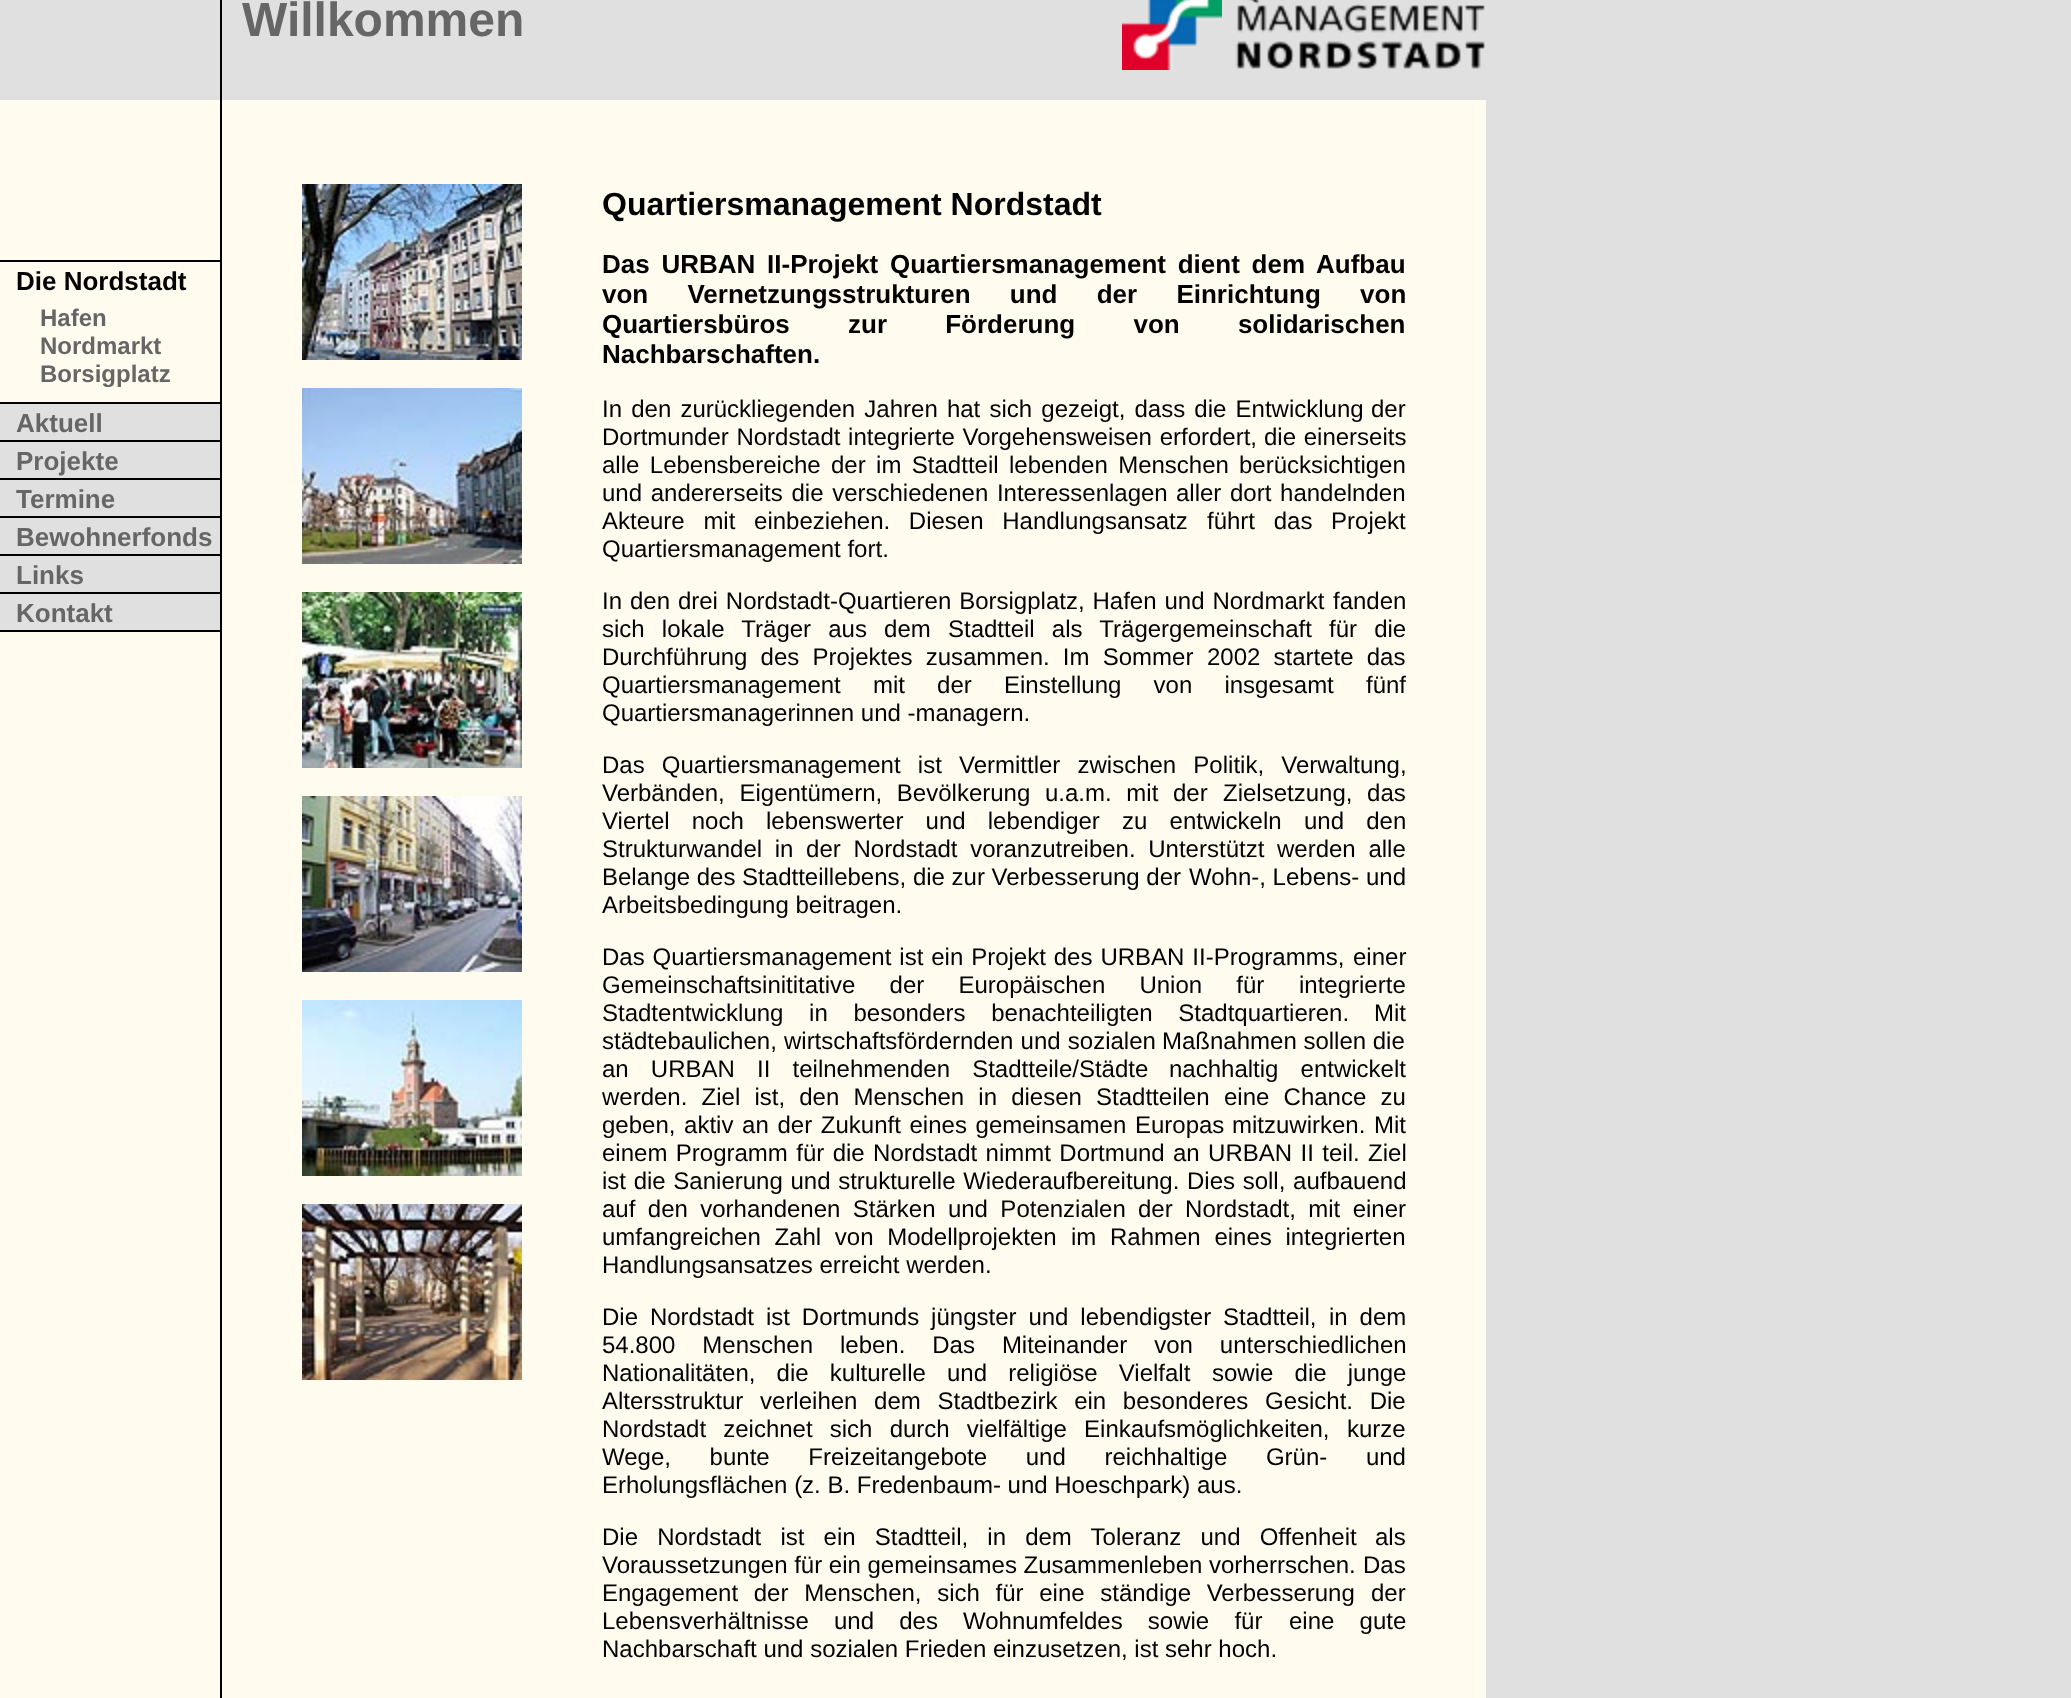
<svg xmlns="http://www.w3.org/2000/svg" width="2071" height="1698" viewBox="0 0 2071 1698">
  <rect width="100%" height="100%" fill="#e0e0e0"/>
  <rect x="220" y="0" width="2" height="1698" fill="#000000"/>
  <text x="242" y="36" font-family="Liberation Sans" font-size="48" font-weight="bold" fill="#666666">Willkommen</text>
  <image x="1122" y="0" width="100" height="70" href="img1.png"/>
  <image x="1235" y="0" width="250" height="69" href="img2.png"/>
  <rect x="0" y="100" width="220" height="1598" fill="#fffcef"/>
  <rect x="0" y="260" width="220" height="2" fill="#000000"/>
  <text x="16" y="290" font-family="Liberation Sans" font-size="26" font-weight="bold" fill="#000000">Die Nordstadt</text>
  <text x="40" y="326" font-family="Liberation Sans" font-size="24" font-weight="bold" fill="#666666">Hafen</text>
  <text x="40" y="354" font-family="Liberation Sans" font-size="24" font-weight="bold" fill="#666666">Nordmarkt</text>
  <text x="40" y="382" font-family="Liberation Sans" font-size="24" font-weight="bold" fill="#666666">Borsigplatz</text>
  <rect x="0" y="402" width="220" height="2" fill="#000000"/>
  <rect x="0" y="404" width="220" height="36" fill="#e0e0e0"/>
  <text x="16" y="432" font-family="Liberation Sans" font-size="26" font-weight="bold" fill="#666666">Aktuell</text>
  <rect x="0" y="440" width="220" height="2" fill="#000000"/>
  <rect x="0" y="442" width="220" height="36" fill="#e0e0e0"/>
  <text x="16" y="470" font-family="Liberation Sans" font-size="26" font-weight="bold" fill="#666666">Projekte</text>
  <rect x="0" y="478" width="220" height="2" fill="#000000"/>
  <rect x="0" y="480" width="220" height="36" fill="#e0e0e0"/>
  <text x="16" y="508" font-family="Liberation Sans" font-size="26" font-weight="bold" fill="#666666">Termine</text>
  <rect x="0" y="516" width="220" height="2" fill="#000000"/>
  <rect x="0" y="518" width="220" height="36" fill="#e0e0e0"/>
  <text x="16" y="546" font-family="Liberation Sans" font-size="26" font-weight="bold" fill="#666666">Bewohnerfonds</text>
  <rect x="0" y="554" width="220" height="2" fill="#000000"/>
  <rect x="0" y="556" width="220" height="36" fill="#e0e0e0"/>
  <text x="16" y="584" font-family="Liberation Sans" font-size="26" font-weight="bold" fill="#666666">Links</text>
  <rect x="0" y="592" width="220" height="2" fill="#000000"/>
  <rect x="0" y="594" width="220" height="36" fill="#e0e0e0"/>
  <text x="16" y="622" font-family="Liberation Sans" font-size="26" font-weight="bold" fill="#666666">Kontakt</text>
  <rect x="0" y="630" width="220" height="2" fill="#000000"/>
  <rect x="222" y="100" width="1264" height="1598" fill="#fffcef"/>
  <image x="302" y="184" width="220" height="176" href="img3.png"/>
  <image x="302" y="388" width="220" height="176" href="img4.png"/>
  <image x="302" y="592" width="220" height="176" href="img5.png"/>
  <image x="302" y="796" width="220" height="176" href="img6.png"/>
  <image x="302" y="1000" width="220" height="176" href="img7.png"/>
  <image x="302" y="1204" width="220" height="176" href="img8.png"/>
  <text x="602" y="215" font-family="Liberation Sans" font-size="32" font-weight="bold" fill="#000000">Quartiersmanagement Nordstadt</text>
  <text x="602" y="273" word-spacing="4.5" font-family="Liberation Sans" font-size="26" font-weight="bold" fill="#000000">Das URBAN II-Projekt Quartiersmanagement dient dem</text>
  <text x="1316" y="273" font-family="Liberation Sans" font-size="26" font-weight="bold" fill="#000000">Aufbau</text>
  <text x="602" y="303" word-spacing="32" font-family="Liberation Sans" font-size="26" font-weight="bold" fill="#000000">von Vernetzungsstrukturen und der Einrichtung von</text>
  <text x="602" y="333" font-family="Liberation Sans" font-size="26" font-weight="bold" fill="#000000">Quartiersbüros</text>
  <text x="848" y="333" word-spacing="51" font-family="Liberation Sans" font-size="26" font-weight="bold" fill="#000000">zur Förderung von solidarischen</text>
  <text x="602" y="363" font-family="Liberation Sans" font-size="26" font-weight="bold" fill="#000000">Nachbarschaften.</text>
  <text x="602" y="417" word-spacing="2.5" font-family="Liberation Sans" font-size="24" fill="#000000">In den zurückliegenden Jahren hat sich gezeigt, dass die Entwicklung</text>
  <text x="1371" y="417" font-family="Liberation Sans" font-size="24" fill="#000000">der</text>
  <text x="602" y="445" word-spacing="1" font-family="Liberation Sans" font-size="24" fill="#000000">Dortmunder Nordstadt integrierte Vorgehensweisen erfordert,</text>
  <text x="1264" y="445" word-spacing="1" font-family="Liberation Sans" font-size="24" fill="#000000">die einerseits</text>
  <text x="602" y="473" word-spacing="3.75" font-family="Liberation Sans" font-size="24" fill="#000000">alle Lebensbereiche der im Stadtteil lebenden Menschen</text>
  <text x="1239" y="473" font-family="Liberation Sans" font-size="24" fill="#000000">berücksichtigen</text>
  <text x="602" y="501" word-spacing="2" font-family="Liberation Sans" font-size="24" fill="#000000">und andererseits die verschiedenen Interessenlagen</text>
  <text x="1176" y="501" word-spacing="2" font-family="Liberation Sans" font-size="24" fill="#000000">aller dort handelnden</text>
  <text x="602" y="529" word-spacing="12" font-family="Liberation Sans" font-size="24" fill="#000000">Akteure mit einbeziehen. Diesen Handlungsansatz</text>
  <text x="1207" y="529" word-spacing="12" font-family="Liberation Sans" font-size="24" fill="#000000">führt das Projekt</text>
  <text x="602" y="557" font-family="Liberation Sans" font-size="24" fill="#000000">Quartiersmanagement fort.</text>
  <text x="602" y="609" word-spacing="1.25" font-family="Liberation Sans" font-size="24" fill="#000000">In den drei Nordstadt-Quartieren Borsigplatz, Hafen und Nordmarkt</text>
  <text x="1333" y="609" font-family="Liberation Sans" font-size="24" fill="#000000">fanden</text>
  <text x="602" y="637" word-spacing="10.5" font-family="Liberation Sans" font-size="24" fill="#000000">sich lokale Träger aus dem Stadtteil als Trägergemeinschaft</text>
  <text x="1329" y="637" word-spacing="10.5" font-family="Liberation Sans" font-size="24" fill="#000000">für die</text>
  <text x="602" y="665" word-spacing="6.5" font-family="Liberation Sans" font-size="24" fill="#000000">Durchführung des Projektes zusammen. Im Sommer</text>
  <text x="1207" y="665" word-spacing="6.5" font-family="Liberation Sans" font-size="24" fill="#000000">2002 startete das</text>
  <text x="602" y="693" word-spacing="25.5" font-family="Liberation Sans" font-size="24" fill="#000000">Quartiersmanagement mit der Einstellung von insgesamt</text>
  <text x="1366" y="693" font-family="Liberation Sans" font-size="24" fill="#000000">fünf</text>
  <text x="602" y="721" font-family="Liberation Sans" font-size="24" fill="#000000">Quartiersmanagerinnen und -managern.</text>
  <text x="602" y="773" word-spacing="10.5" font-family="Liberation Sans" font-size="24" fill="#000000">Das Quartiersmanagement ist Vermittler zwischen Politik, Verwaltung,</text>
  <text x="602" y="801" word-spacing="8" font-family="Liberation Sans" font-size="24" fill="#000000">Verbänden, Eigentümern, Bevölkerung u.a.m. mit der</text>
  <text x="1223" y="801" word-spacing="8" font-family="Liberation Sans" font-size="24" fill="#000000">Zielsetzung, das</text>
  <text x="602" y="829" word-spacing="15.5" font-family="Liberation Sans" font-size="24" fill="#000000">Viertel noch lebenswerter und lebendiger zu entwickeln</text>
  <text x="1304" y="829" word-spacing="15.5" font-family="Liberation Sans" font-size="24" fill="#000000">und den</text>
  <text x="602" y="857" word-spacing="6" font-family="Liberation Sans" font-size="24" fill="#000000">Strukturwandel in der Nordstadt voranzutreiben. Unterstützt</text>
  <text x="1277" y="857" word-spacing="6" font-family="Liberation Sans" font-size="24" fill="#000000">werden alle</text>
  <text x="602" y="885" font-family="Liberation Sans" font-size="24" fill="#000000">Belange des Stadtteillebens, die zur Verbesserung der</text>
  <text x="1189" y="885" font-family="Liberation Sans" font-size="24" fill="#000000">Wohn-, Lebens- und</text>
  <text x="602" y="913" font-family="Liberation Sans" font-size="24" fill="#000000">Arbeitsbedingung beitragen.</text>
  <text x="602" y="965" word-spacing="1.25" font-family="Liberation Sans" font-size="24" fill="#000000">Das Quartiersmanagement ist ein Projekt des URBAN II-Programms,</text>
  <text x="1353" y="965" font-family="Liberation Sans" font-size="24" fill="#000000">einer</text>
  <text x="602" y="993" word-spacing="27.5" font-family="Liberation Sans" font-size="24" fill="#000000">Gemeinschaftsinititative der Europäischen Union für</text>
  <text x="1299" y="993" font-family="Liberation Sans" font-size="24" fill="#000000">integrierte</text>
  <text x="602" y="1021" word-spacing="19" font-family="Liberation Sans" font-size="24" fill="#000000">Stadtentwicklung in besonders benachteiligten Stadtquartieren.</text>
  <text x="1374" y="1021" font-family="Liberation Sans" font-size="24" fill="#000000">Mit</text>
  <text x="602" y="1049" word-spacing="0.5" font-family="Liberation Sans" font-size="24" fill="#000000">städtebaulichen, wirtschaftsfördernden und sozialen</text>
  <text x="1162" y="1049" font-family="Liberation Sans" font-size="24" fill="#000000">Maßnahmen sollen die</text>
  <text x="602" y="1077" word-spacing="15.5" font-family="Liberation Sans" font-size="24" fill="#000000">an URBAN II teilnehmenden Stadtteile/Städte</text>
  <text x="1169" y="1077" word-spacing="15.5" font-family="Liberation Sans" font-size="24" fill="#000000">nachhaltig entwickelt</text>
  <text x="602" y="1105" word-spacing="7.5" font-family="Liberation Sans" font-size="24" fill="#000000">werden. Ziel ist, den Menschen in diesen Stadtteilen</text>
  <text x="1224" y="1105" word-spacing="7.5" font-family="Liberation Sans" font-size="24" fill="#000000">eine Chance zu</text>
  <text x="602" y="1133" word-spacing="2" font-family="Liberation Sans" font-size="24" fill="#000000">geben, aktiv an der Zukunft eines gemeinsamen Europas</text>
  <text x="1232" y="1133" word-spacing="2" font-family="Liberation Sans" font-size="24" fill="#000000">mitzuwirken. Mit</text>
  <text x="602" y="1161" word-spacing="1.75" font-family="Liberation Sans" font-size="24" fill="#000000">einem Programm für die Nordstadt nimmt Dortmund</text>
  <text x="1173" y="1161" word-spacing="1.75" font-family="Liberation Sans" font-size="24" fill="#000000">an URBAN II teil. Ziel</text>
  <text x="602" y="1189" word-spacing="1" font-family="Liberation Sans" font-size="24" fill="#000000">ist die Sanierung und strukturelle Wiederaufbereitung.</text>
  <text x="1187" y="1189" word-spacing="1" font-family="Liberation Sans" font-size="24" fill="#000000">Dies soll, aufbauend</text>
  <text x="602" y="1217" word-spacing="5.75" font-family="Liberation Sans" font-size="24" fill="#000000">auf den vorhandenen Stärken und Potenzialen</text>
  <text x="1138" y="1217" word-spacing="5.75" font-family="Liberation Sans" font-size="24" fill="#000000">der Nordstadt, mit einer</text>
  <text x="602" y="1245" word-spacing="7" font-family="Liberation Sans" font-size="24" fill="#000000">umfangreichen Zahl von Modellprojekten</text>
  <text x="1071" y="1245" word-spacing="7" font-family="Liberation Sans" font-size="24" fill="#000000">im Rahmen eines integrierten</text>
  <text x="602" y="1273" font-family="Liberation Sans" font-size="24" fill="#000000">Handlungsansatzes erreicht werden.</text>
  <text x="602" y="1325" word-spacing="5.25" font-family="Liberation Sans" font-size="24" fill="#000000">Die Nordstadt ist Dortmunds jüngster und lebendigster Stadtteil,</text>
  <text x="1329" y="1325" word-spacing="5.25" font-family="Liberation Sans" font-size="24" fill="#000000">in dem</text>
  <text x="602" y="1353" word-spacing="20.25" font-family="Liberation Sans" font-size="24" fill="#000000">54.800 Menschen leben. Das Miteinander von unterschiedlichen</text>
  <text x="602" y="1381" word-spacing="14.5" font-family="Liberation Sans" font-size="24" fill="#000000">Nationalitäten, die kulturelle und religiöse Vielfalt</text>
  <text x="1212" y="1381" word-spacing="14.5" font-family="Liberation Sans" font-size="24" fill="#000000">sowie die junge</text>
  <text x="602" y="1409" word-spacing="10" font-family="Liberation Sans" font-size="24" fill="#000000">Altersstruktur verleihen dem Stadtbezirk ein besonderes</text>
  <text x="1265" y="1409" word-spacing="10" font-family="Liberation Sans" font-size="24" fill="#000000">Gesicht. Die</text>
  <text x="602" y="1437" word-spacing="10.5" font-family="Liberation Sans" font-size="24" fill="#000000">Nordstadt zeichnet sich durch vielfältige Einkaufsmöglichkeiten,</text>
  <text x="1347" y="1437" font-family="Liberation Sans" font-size="24" fill="#000000">kurze</text>
  <text x="602" y="1465" word-spacing="32" font-family="Liberation Sans" font-size="24" fill="#000000">Wege, bunte Freizeitangebote und reichhaltige Grün- und</text>
  <text x="602" y="1493" font-family="Liberation Sans" font-size="24" fill="#000000">Erholungsflächen (z. B. Fredenbaum- und Hoeschpark) aus.</text>
  <text x="602" y="1545" word-spacing="12.5" font-family="Liberation Sans" font-size="24" fill="#000000">Die Nordstadt ist ein Stadtteil, in dem Toleranz und Offenheit</text>
  <text x="1375" y="1545" font-family="Liberation Sans" font-size="24" fill="#000000">als</text>
  <text x="602" y="1573" font-family="Liberation Sans" font-size="24" fill="#000000">Voraussetzungen für ein gemeinsames Zusammenleben vorherrschen.</text>
  <text x="1363" y="1573" font-family="Liberation Sans" font-size="24" fill="#000000">Das</text>
  <text x="602" y="1601" word-spacing="9" font-family="Liberation Sans" font-size="24" fill="#000000">Engagement der Menschen, sich für eine ständige Verbesserung</text>
  <text x="1371" y="1601" font-family="Liberation Sans" font-size="24" fill="#000000">der</text>
  <text x="602" y="1629" word-spacing="18.5" font-family="Liberation Sans" font-size="24" fill="#000000">Lebensverhältnisse und des Wohnumfeldes sowie für</text>
  <text x="1289" y="1629" word-spacing="18.5" font-family="Liberation Sans" font-size="24" fill="#000000">eine gute</text>
  <text x="602" y="1657" font-family="Liberation Sans" font-size="24" fill="#000000">Nachbarschaft und sozialen Frieden einzusetzen, ist sehr hoch.</text>
</svg>
